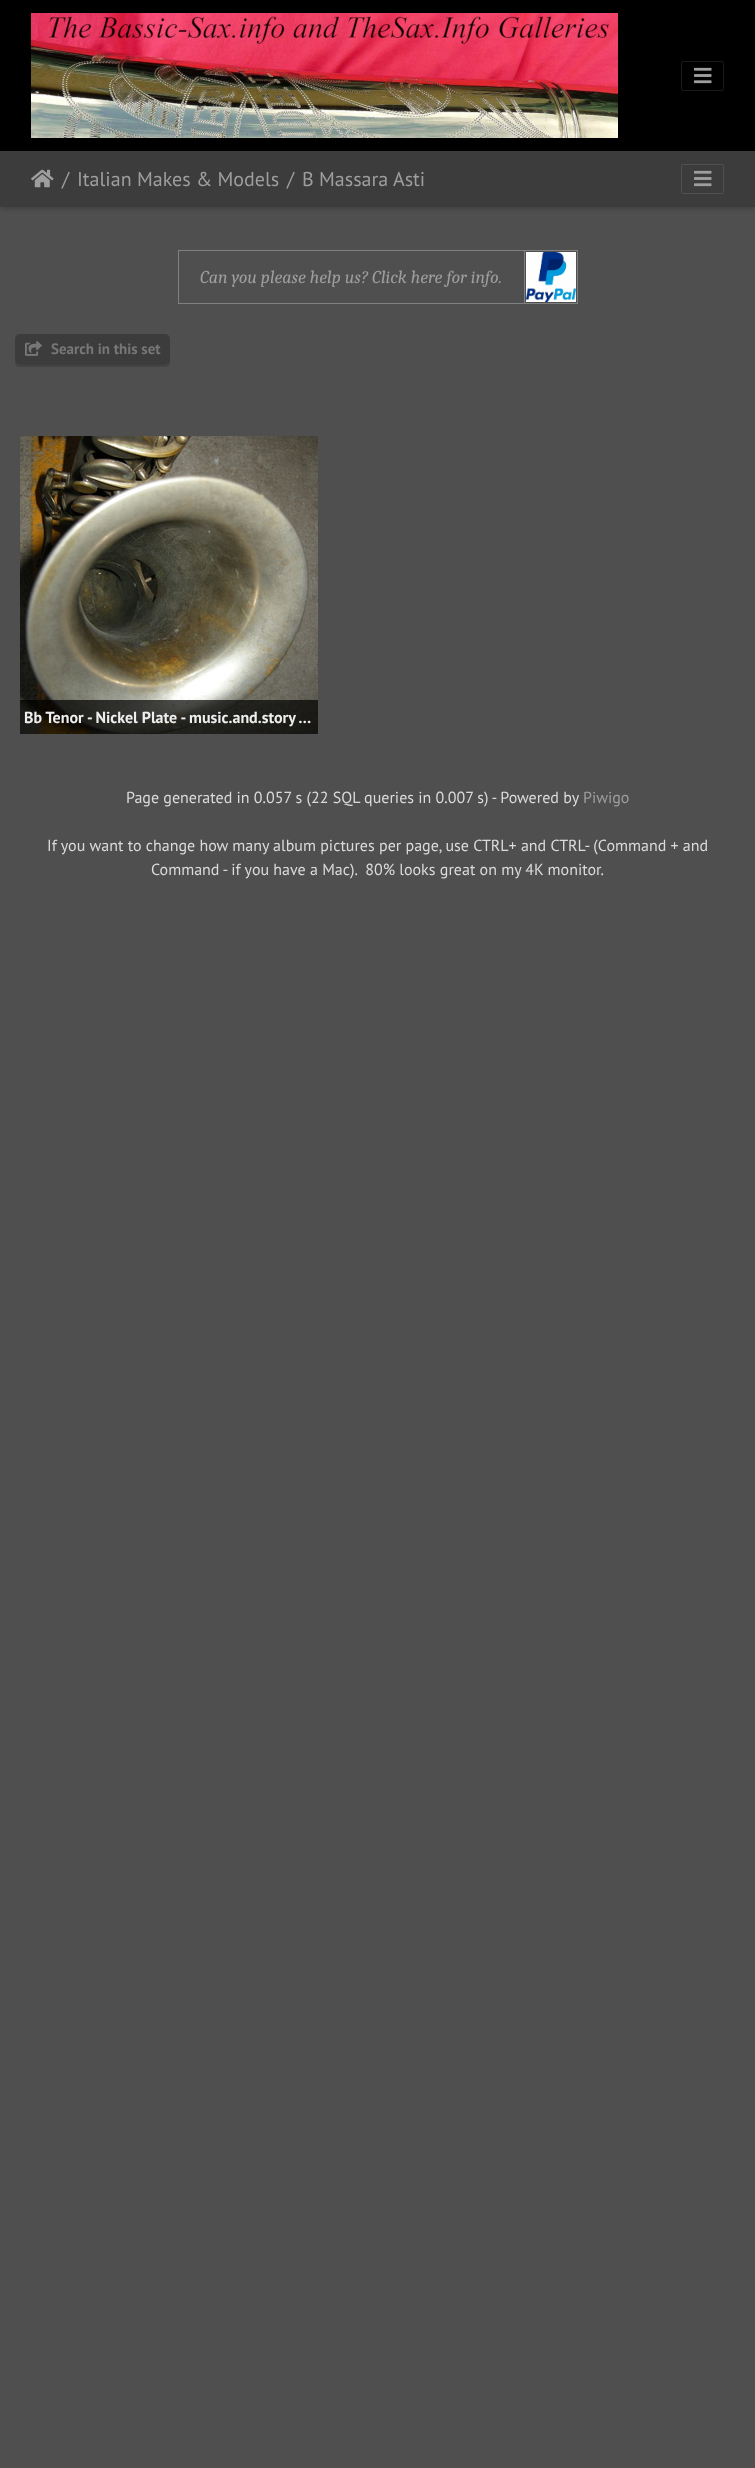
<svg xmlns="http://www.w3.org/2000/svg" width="755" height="2468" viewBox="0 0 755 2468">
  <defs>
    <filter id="blur1" x="-50%" y="-200%" width="200%" height="500%"><feGaussianBlur stdDeviation="2.5"/></filter>
  </defs>
  <rect width="100%" height="100%" fill="#4f4f4f"/>
  <rect x="1" y="155" width="753" height="54" fill="#000000" fill-opacity="0.2" filter="url(#blur1)"/>
  <rect x="0" y="0" width="755" height="151" fill="#000000"/>
  <image x="31" y="13" width="587" height="125" href="img1.png"/>
  <rect x="681.5" y="61.5" width="42" height="29" rx="1.5" fill="none" stroke="#1a1a1a"/>
  <image x="694" y="67" width="18" height="17" href="img2.png"/>
  <rect x="0" y="151" width="755" height="56" fill="#3c3c3c"/>
  <image x="31" y="169" width="23" height="19" href="img3.png"/>
  <text x="62" y="186" font-family="PT Sans" font-size="20" fill="#9e9e9e">/</text>
  <text x="77" y="186" font-family="PT Sans" font-size="20" fill="#9e9e9e">Italian Makes &amp; Models</text>
  <text x="287" y="186" font-family="PT Sans" font-size="20" fill="#9e9e9e">/</text>
  <text x="302" y="186" font-family="PT Sans" font-size="20" fill="#9e9e9e">B Massara Asti</text>
  <rect x="681.5" y="164.5" width="42" height="29" rx="1.5" fill="none" stroke="#505050"/>
  <image x="694" y="170" width="18" height="17" href="img4.png"/>
  <rect x="178" y="250" width="400" height="1" fill="#808080"/>
  <rect x="577" y="250" width="1" height="54" fill="#808080"/>
  <rect x="178" y="303" width="400" height="1" fill="#808080"/>
  <rect x="178" y="250" width="1" height="54" fill="#808080"/>
  <text x="200" y="283" font-family="Caladea" font-size="18" font-style="italic" fill="#9e9e9e">Can you please help us? Click here for info.</text>
  <rect x="524" y="250" width="1" height="54" fill="#808080"/>
  <image x="526" y="252" width="50" height="50" href="img5.png"/>
  <path d="M15 360V362C15 365 17 367 20 367H165C168 367 170 365 170 362V360C170 363 168 365 165 365H20C17 365 15 363 15 360Z" fill="#444444"/>
  <rect x="15" y="334" width="155" height="31" rx="5" fill="#3c3c3c"/>
  <image x="25" y="341" width="17" height="15" href="img6.png"/>
  <text x="51" y="354" font-family="PT Sans" font-size="15" font-weight="bold" fill="#777777">Search in this set</text>
  <image x="20" y="436" width="298" height="298" href="img7.png"/>
  <rect x="20" y="700" width="298" height="34" fill="#000000" fill-opacity="0.7"/>
  <text x="24" y="723" font-family="PT Sans" font-size="16" font-weight="bold" fill="#eeeeee">Bb Tenor - Nickel Plate - music.and.story …</text>
  <text x="126" y="803" font-family="PT Sans" font-size="16" fill="#dbdbdb">Page generated in 0.057 s (22 SQL queries in 0.007 s) - Powered by</text>
  <text x="583" y="803" font-family="PT Sans" font-size="16" fill="#9e9e9e">Piwigo</text>
  <text x="47" y="851" font-family="PT Sans" font-size="16" fill="#dbdbdb">If you want to change how many album pictures per page, use CTRL+ and CTRL- (Command + and</text>
  <text x="151" y="875" font-family="PT Sans" font-size="16" fill="#dbdbdb" xml:space="preserve">Command - if you have a Mac).  80% looks great on my 4K monitor.</text>
</svg>
